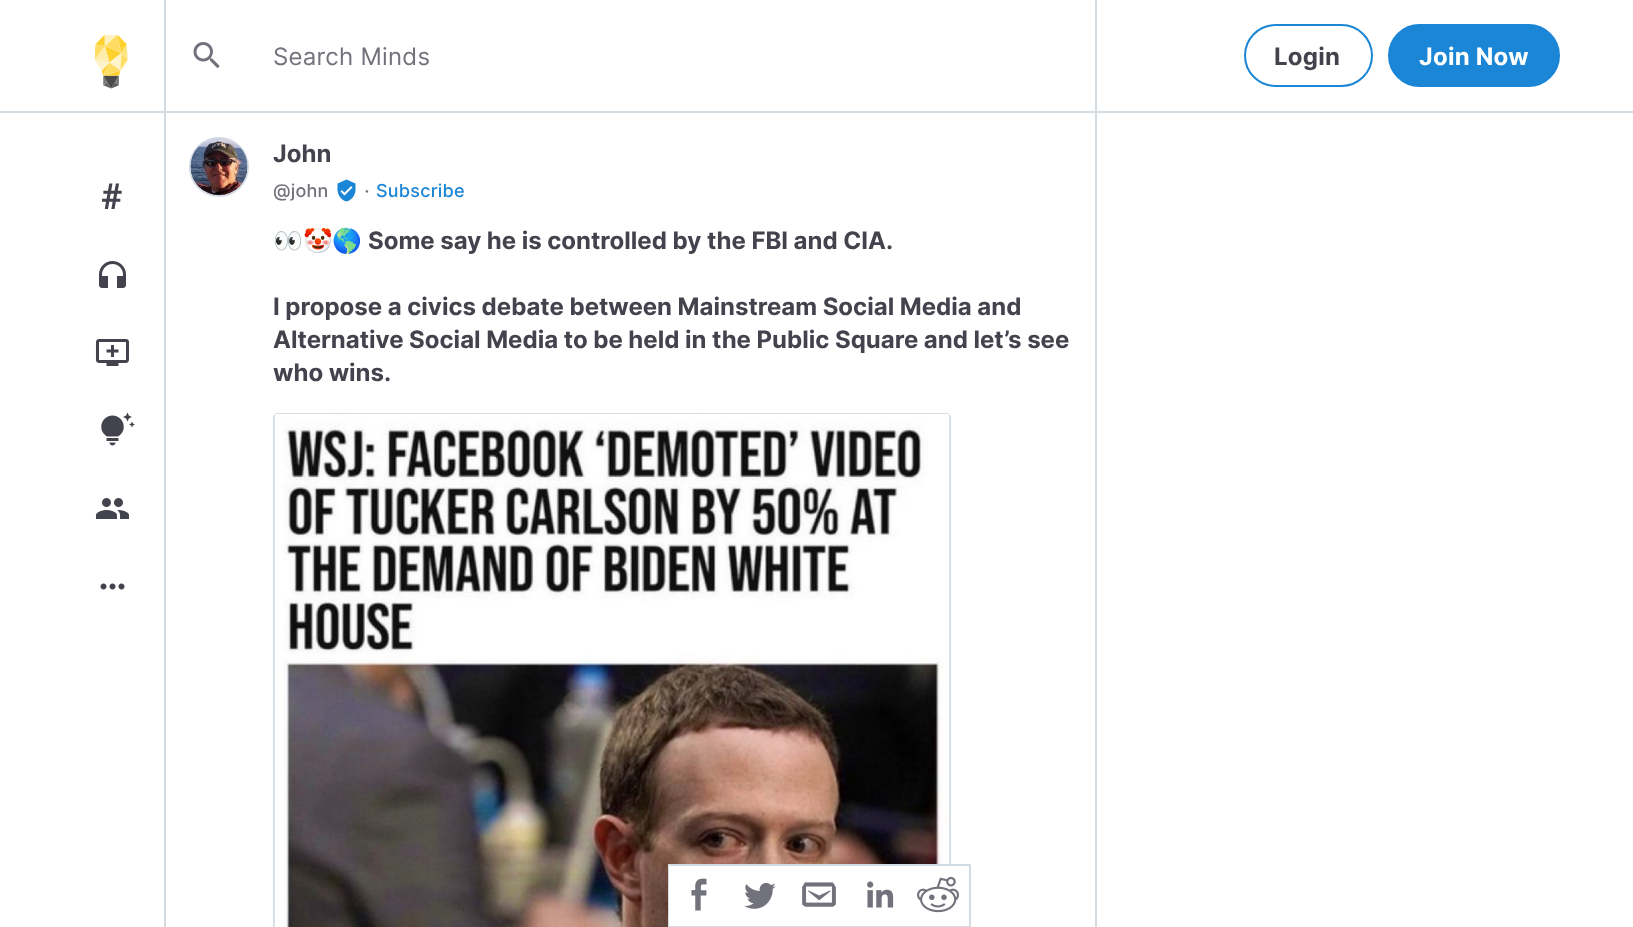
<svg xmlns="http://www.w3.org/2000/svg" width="1633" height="927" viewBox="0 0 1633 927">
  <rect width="100%" height="100%" fill="#ffffff"/>
  <rect x="0" y="111" width="1633" height="2" fill="#d3dbe3"/>
  <rect x="164" y="0" width="2" height="111" fill="#d3dbe3"/>
  <image x="95" y="35" width="33" height="54" href="img1.png"/>
  <rect x="1095" y="0" width="2" height="111" fill="#d3dbe3"/>
  <image x="193" y="42" width="27" height="27" href="img2.png"/>
  <text x="273" y="65" font-family="Inter" font-size="24" letter-spacing="0.25" fill="#72727c">Search Minds</text>
  <rect x="1245" y="25" width="127" height="61" rx="30.5" fill="none" stroke="#1b85d6" stroke-width="2"/>
  <text x="1274" y="65" font-family="Inter" font-size="24" font-weight="bold" letter-spacing="0.25" fill="#43434d">Login</text>
  <rect x="1389" y="25" width="170" height="61" rx="30.5" fill="#1b85d6" stroke="#1b85d6" stroke-width="2"/>
  <text x="1419" y="65" font-family="Inter" font-size="24" font-weight="bold" letter-spacing="0.25" fill="#ffffff">Join Now</text>
  <rect x="164" y="113" width="2" height="814" fill="#d3dbe3"/>
  <text x="101" y="209" font-family="Roboto" font-size="36" font-weight="bold" fill="#43434d">#</text>
  <image x="99" y="261" width="27" height="27" href="img3.png"/>
  <image x="95" y="339" width="34" height="27" href="img4.png"/>
  <image x="101" y="412" width="34" height="34" href="img5.png"/>
  <image x="95" y="498" width="35" height="21" href="img6.png"/>
  <image x="100" y="583" width="25" height="7" href="img7.png"/>
  <circle cx="219" cy="167" r="29" fill="#72727c" stroke="#d3dbe3" stroke-width="2"/>
  <image x="190" y="138" width="58" height="57" href="img8.png"/>
  <text x="273" y="162" font-family="Inter" font-size="24" font-weight="bold" fill="#43434d">John</text>
  <text x="273" y="197" font-family="Inter" font-size="18" font-weight="500" letter-spacing="0.25" fill="#72727c">@john</text>
  <image x="337" y="179" width="19" height="23" href="img9.png"/>
  <text x="364" y="198" font-family="Inter" font-size="21" fill="#72727c">·</text>
  <text x="376" y="197" font-family="Inter" font-size="18" font-weight="500" letter-spacing="0.25" fill="#1b85d6">Subscribe</text>
  <text x="273" y="249" font-family="Noto Color Emoji" font-size="24" font-weight="bold" fill="#43434d">👀🤡🌎</text>
  <text x="368" y="249" font-family="Inter" font-size="24" font-weight="bold" fill="#43434d">Some say he is controlled by the FBI and CIA.</text>
  <text x="273" y="315" font-family="Inter" font-size="24" font-weight="bold" fill="#43434d">I propose a civics debate between Mainstream Social Media and</text>
  <text x="273" y="348" font-family="Inter" font-size="24" font-weight="bold" fill="#43434d">Alternative Social Media to be held in the Public Square and let’s see</text>
  <text x="273" y="381" font-family="Inter" font-size="24" font-weight="bold" fill="#43434d">who wins.</text>
  <rect x="274" y="414" width="676" height="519" rx="4" fill="none" stroke="#d3dbe3" stroke-width="2"/>
  <image x="274" y="414" width="676" height="513" href="img10.png"/>
  <rect x="1095" y="113" width="2" height="814" fill="#d3dbe3"/>
  <rect x="669" y="865" width="301" height="61" fill="none" stroke="#d3dbe3" stroke-width="2"/>
  <rect x="669" y="866" width="300" height="60" fill="#ffffff"/>
  <image x="691" y="878" width="16" height="33" href="img11.png"/>
  <image x="744" y="883" width="32" height="26" href="img12.png"/>
  <image x="802" y="882" width="34" height="25" href="img13.png"/>
  <image x="867" y="881" width="27" height="27" href="img14.png"/>
  <image x="917" y="876" width="42" height="37" href="img15.png"/>
</svg>
